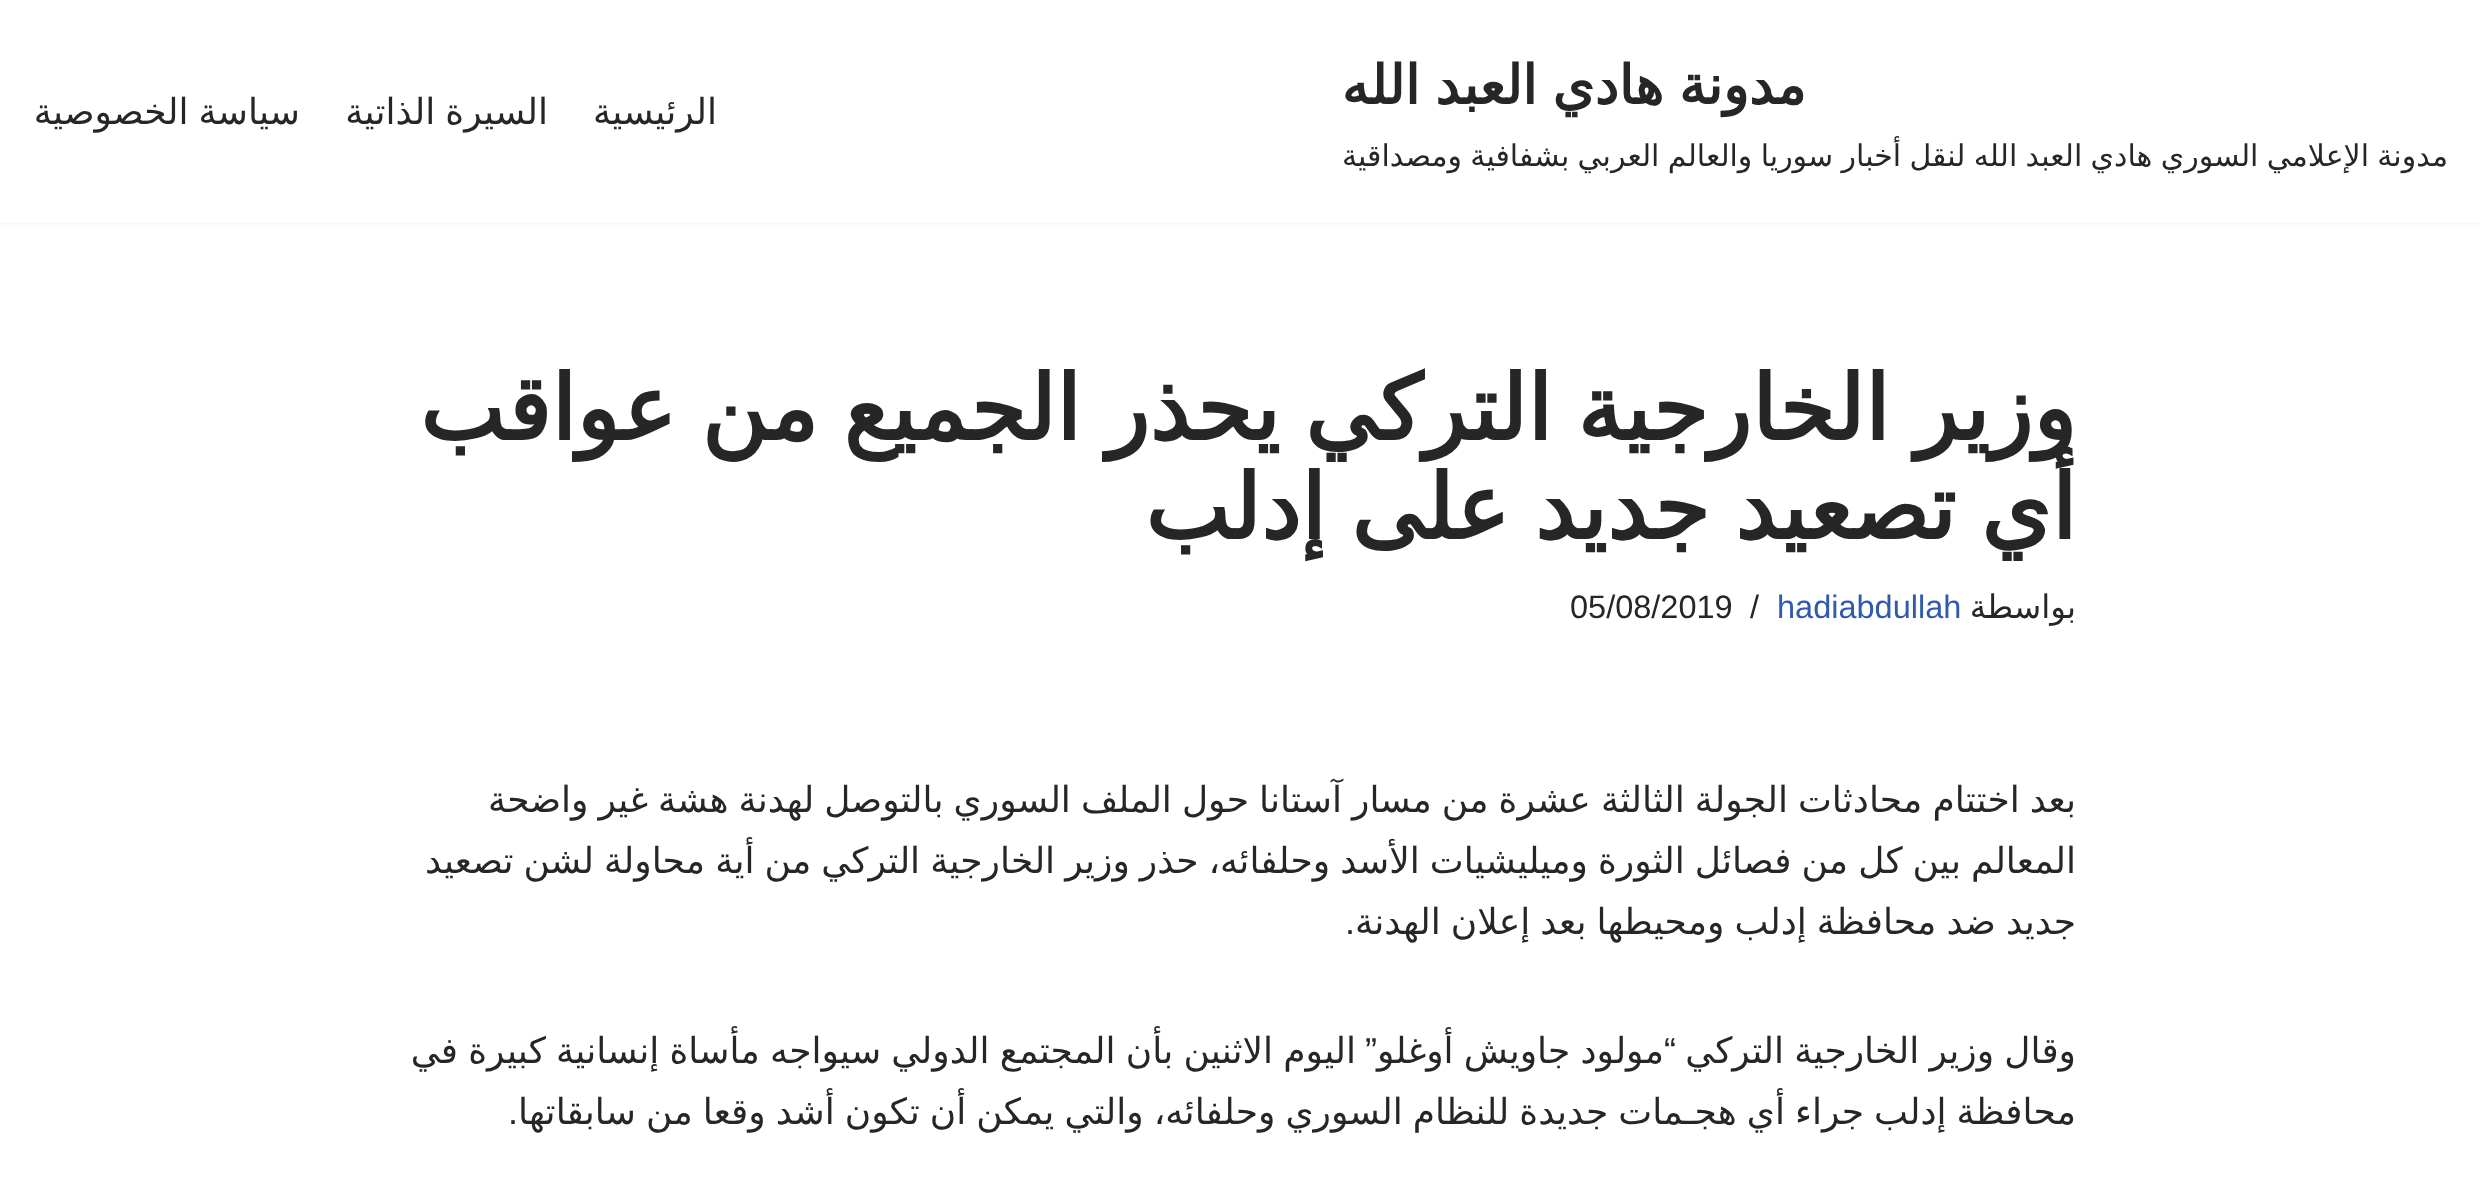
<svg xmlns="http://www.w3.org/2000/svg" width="2480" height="1200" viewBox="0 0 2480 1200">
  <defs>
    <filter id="blur1" x="-50%" y="-200%" width="200%" height="500%"><feGaussianBlur stdDeviation="3.5"/></filter>
  </defs>
  <rect width="100%" height="100%" fill="#ffffff"/>
  <rect x="0" y="-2" width="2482" height="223" fill="#000000" fill-opacity="0.1" filter="url(#blur1)"/>
  <rect x="0" y="0" width="2480" height="223" fill="#ffffff"/>
  <text x="1806" y="104" word-spacing="-2" font-family="DejaVu Sans" font-size="54" font-weight="bold" direction="rtl" fill="#272626">مدونة هادي العبد الله</text>
  <text x="2448" y="166" word-spacing="-1.25" font-family="DejaVu Sans" font-size="30" direction="rtl" fill="#272626">مدونة الإعلامي السوري هادي العبد الله لنقل أخبار سوريا والعالم العربي بشفافية ومصداقية</text>
  <text x="717" y="124" font-family="DejaVu Sans" font-size="36" direction="rtl" fill="#272626">الرئيسية</text>
  <text x="548" y="124" word-spacing="-1.4" font-family="DejaVu Sans" font-size="36" direction="rtl" fill="#272626">السيرة الذاتية</text>
  <text x="300" y="124" word-spacing="-1.4" font-family="DejaVu Sans" font-size="36" direction="rtl" fill="#272626">سياسة الخصوصية</text>
  <text x="2076" y="440" word-spacing="-3.5" font-family="DejaVu Sans" font-size="90" font-weight="bold" direction="rtl" fill="#272626">وزير الخارجية التركي يحذر الجميع من عواقب</text>
  <text x="2076" y="539" word-spacing="-3.5" font-family="DejaVu Sans" font-size="90" font-weight="bold" direction="rtl" fill="#272626">أي تصعيد جديد على إدلب</text>
  <text x="2076" y="618" font-family="DejaVu Sans" font-size="32.5" direction="rtl" fill="#272626">بواسطة</text>
  <text x="1777" y="618" font-family="Liberation Sans" font-size="32.5" fill="#2f5aae">hadiabdullah</text>
  <text x="1750" y="618" font-family="Liberation Sans" font-size="32.5" fill="#272626">/</text>
  <text x="1570" y="618" font-family="Liberation Sans" font-size="32.5" fill="#272626">05/08/2019</text>
  <text x="2076" y="812" word-spacing="-1.4" font-family="DejaVu Sans" font-size="36" direction="rtl" fill="#272626">بعد اختتام محادثات الجولة الثالثة عشرة من مسار آستانا حول الملف السوري بالتوصل لهدنة هشة غير واضحة</text>
  <text x="2076" y="873" word-spacing="-1.4" font-family="DejaVu Sans" font-size="36" direction="rtl" fill="#272626">المعالم بين كل من فصائل الثورة وميليشيات الأسد وحلفائه، حذر وزير الخارجية التركي من أية محاولة لشن تصعيد</text>
  <text x="2076" y="934" word-spacing="-1.4" font-family="DejaVu Sans" font-size="36" direction="rtl" fill="#272626">جديد ضد محافظة إدلب ومحيطها بعد إعلان الهدنة</text>
  <text x="1355" y="934" font-family="Liberation Sans" font-size="36" direction="rtl" fill="#272626">.</text>
  <text x="2076" y="1063" word-spacing="-1.25" font-family="DejaVu Sans" font-size="36" direction="rtl" fill="#272626">وقال وزير الخارجية التركي</text>
  <text x="1676" y="1063" font-family="Liberation Sans" font-size="36" direction="rtl" fill="#272626">“</text>
  <text x="1377" y="1063" font-family="Liberation Sans" font-size="36" direction="rtl" fill="#272626">”</text>
  <text x="1664" y="1063" word-spacing="-1.25" font-family="DejaVu Sans" font-size="36" direction="rtl" fill="#272626">مولود جاويش أوغلو</text>
  <text x="1356" y="1063" word-spacing="-1.25" font-family="DejaVu Sans" font-size="36" direction="rtl" fill="#272626">اليوم الاثنين بأن المجتمع الدولي سيواجه مأساة إنسانية كبيرة في</text>
  <text x="2076" y="1124" word-spacing="-1.4" font-family="DejaVu Sans" font-size="36" direction="rtl" fill="#272626">محافظة إدلب جراء أي هجـمات جديدة للنظام السوري وحلفائه، والتي يمكن أن تكون أشد وقعا من سابقاتها</text>
  <text x="518" y="1124" font-family="Liberation Sans" font-size="36" direction="rtl" fill="#272626">.</text>
</svg>
